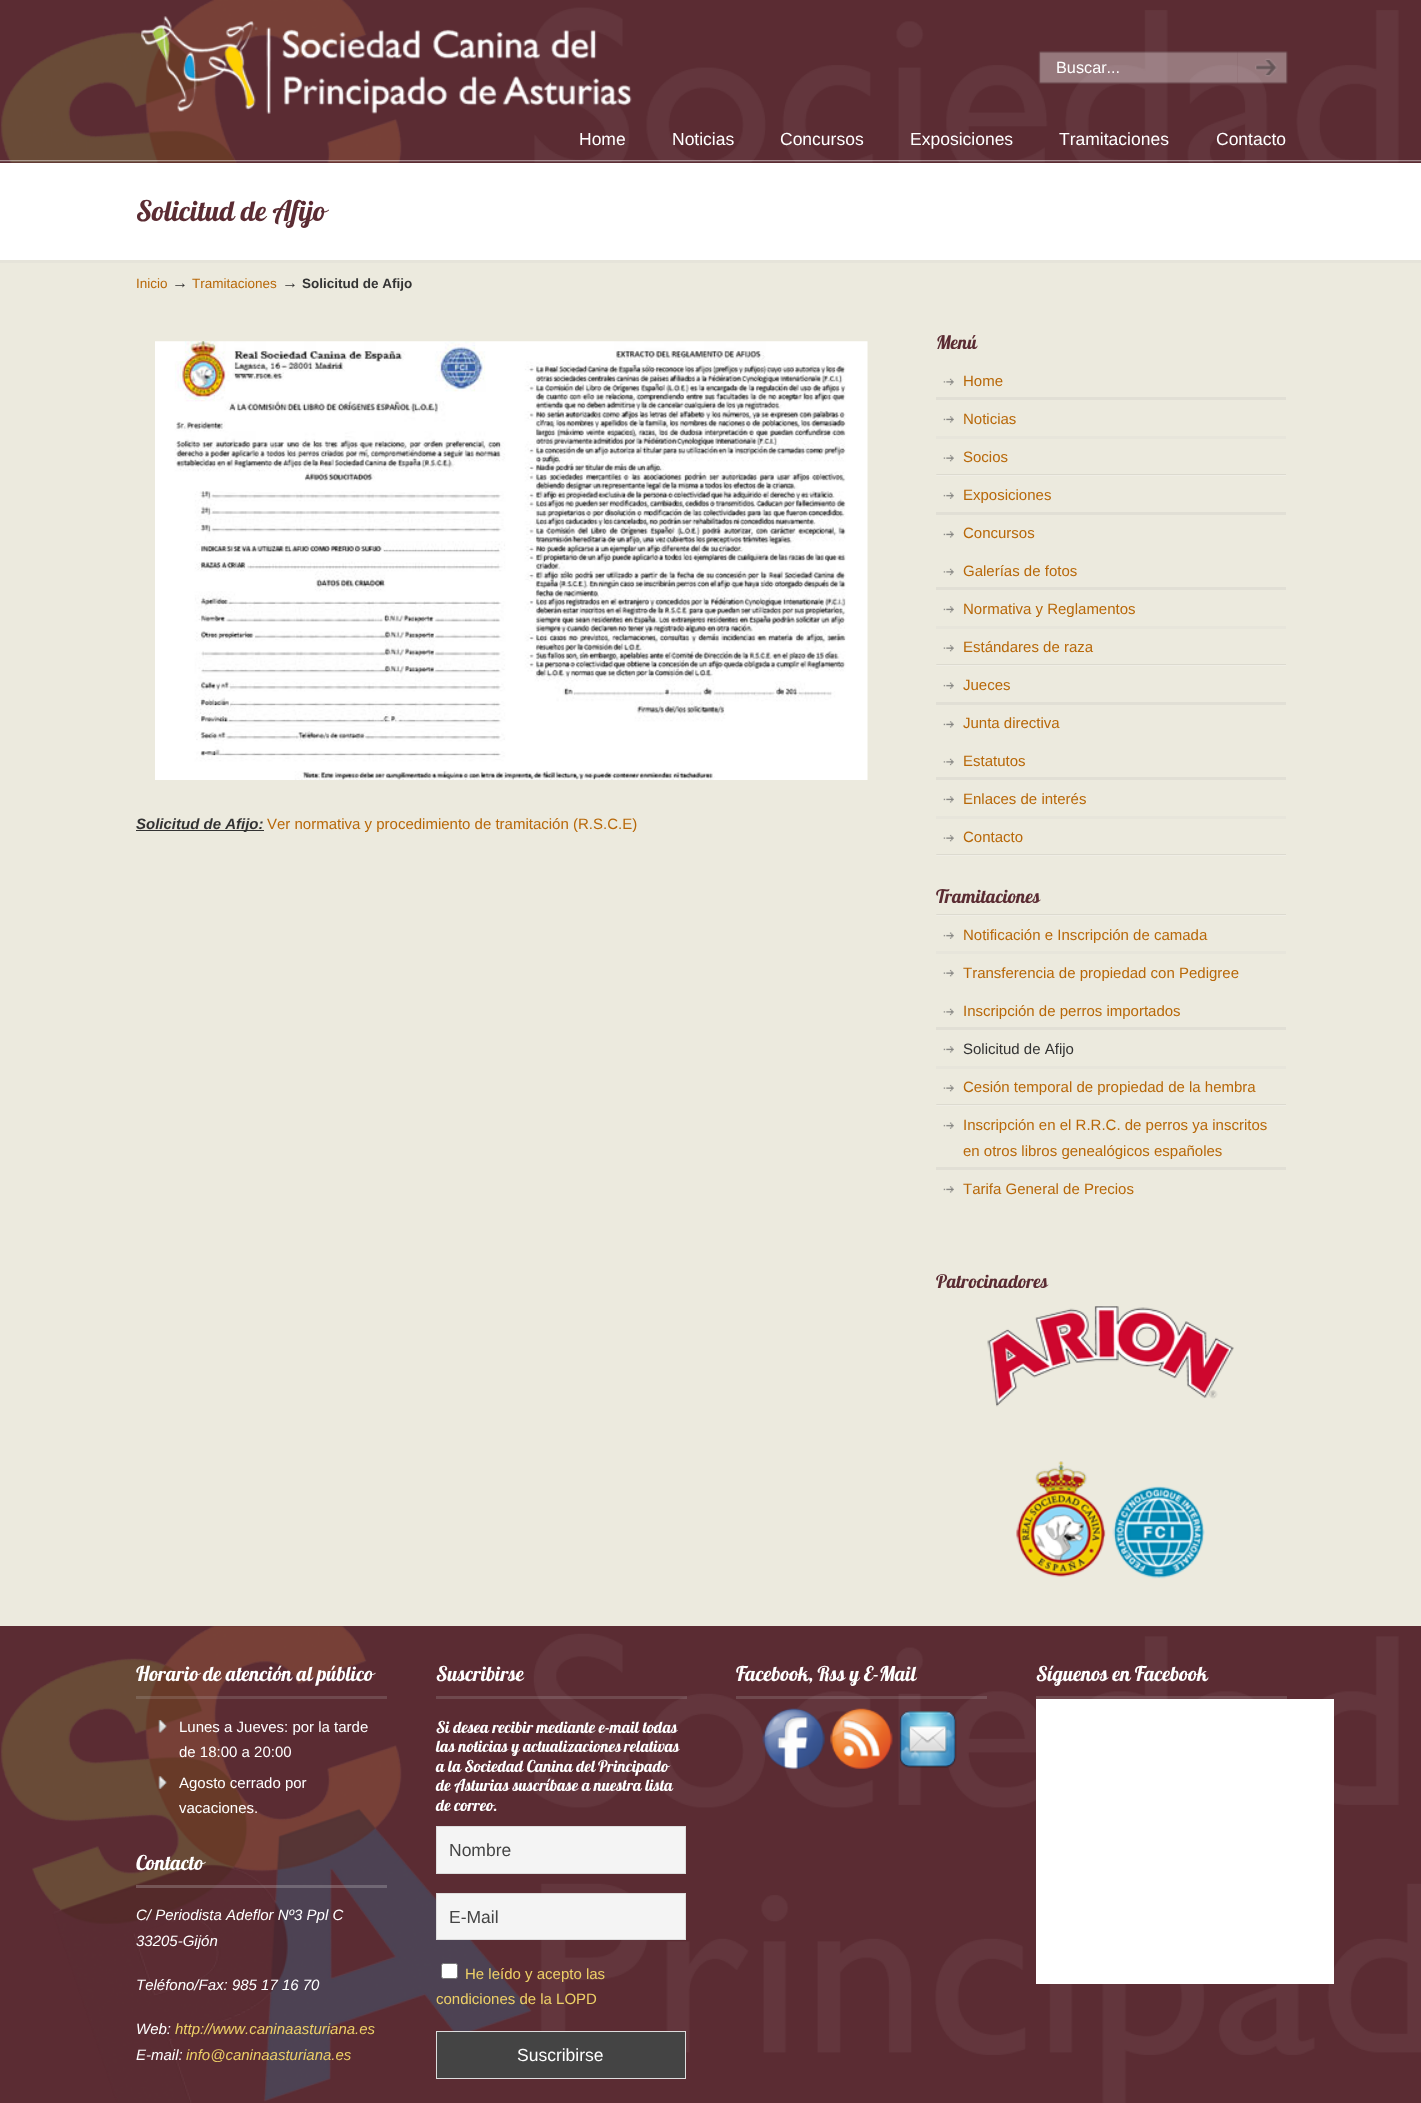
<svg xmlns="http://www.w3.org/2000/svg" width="1421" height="2103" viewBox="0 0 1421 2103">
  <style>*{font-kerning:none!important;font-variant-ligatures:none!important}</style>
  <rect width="100%" height="100%" fill="#5b2c33"/>
  <image x="1" y="0" width="1398" height="163" href="img1.png"/>
  <image x="141" y="16" width="491" height="98" href="img2.png"/>
  <image x="1038" y="51" width="200" height="33" href="img3.png"/>
  <text x="1056" y="73" font-family="Liberation Sans" font-size="16.25" fill="#ffffff">Buscar...</text>
  <image x="1237" y="51" width="51" height="33" href="img4.png"/>
  <image x="0" y="160" width="1421" height="2" href="img5.png"/>
  <text x="579" y="145" font-family="Liberation Sans" font-size="17.5" fill="#ffffff">Home</text>
  <text x="672" y="145" font-family="Liberation Sans" font-size="17.5" fill="#ffffff">Noticias</text>
  <text x="780" y="145" font-family="Liberation Sans" font-size="17.5" fill="#ffffff">Concursos</text>
  <text x="910" y="145" font-family="Liberation Sans" font-size="17.5" fill="#ffffff">Exposiciones</text>
  <text x="1059" y="145" font-family="Liberation Sans" font-size="17.5" fill="#ffffff">Tramitaciones</text>
  <text x="1216" y="145" font-family="Liberation Sans" font-size="17.5" fill="#ffffff">Contacto</text>
  <rect x="0" y="163" width="1421" height="97" fill="#ffffff"/>
  <text x="136" y="221" font-family="Lobster" font-size="28.25" fill="#5b2c33">Solicitud de Afijo</text>
  <rect x="0" y="263" width="1421" height="1363" fill="#eceade"/>
  <rect x="0" y="260" width="1421" height="3" fill="#e6e4da"/>
  <text x="136" y="288" font-family="Liberation Sans" font-size="13.5" fill="#b86809">Inicio</text>
  <text x="172" y="288" font-family="Liberation Sans" font-size="16" fill="#333333">→</text>
  <text x="192" y="288" font-family="Liberation Sans" font-size="13.5" fill="#b86809">Tramitaciones</text>
  <text x="282" y="288" font-family="Liberation Sans" font-size="16" fill="#333333">→</text>
  <text x="302" y="288" font-family="Liberation Sans" font-size="13.5" font-weight="bold" fill="#333333">Solicitud de Afijo</text>
  <image x="155" y="341" width="713" height="439" href="img6.png"/>
  <rect x="136" y="830" width="128" height="1" fill="#333333"/>
  <text x="136" y="829" font-family="Liberation Sans" font-size="15" font-weight="bold" font-style="italic" fill="#333333">Solicitud de Afijo:</text>
  <text x="267" y="829" font-family="Liberation Sans" font-size="15" fill="#b86809">Ver normativa y procedimiento de tramitación (R.S.C.E)</text>
  <text x="936" y="349" font-family="Lobster" font-size="18.75" fill="#5b2c33">Menú</text>
  <image x="943" y="378" width="11" height="8" href="img7.png"/>
  <rect x="936" y="397" width="350" height="3" fill="#e1dfd5"/>
  <text x="963" y="386" font-family="Liberation Sans" font-size="15" fill="#b86809">Home</text>
  <image x="943" y="416" width="11" height="7" href="img8.png"/>
  <rect x="936" y="436" width="350" height="3" fill="#e7e5db"/>
  <text x="963" y="424" font-family="Liberation Sans" font-size="15" fill="#b86809">Noticias</text>
  <image x="943" y="454" width="11" height="8" href="img9.png"/>
  <image x="936" y="474" width="350" height="2" href="img10.png"/>
  <text x="963" y="462" font-family="Liberation Sans" font-size="15" fill="#b86809">Socios</text>
  <image x="943" y="492" width="11" height="7" href="img11.png"/>
  <rect x="936" y="512" width="350" height="3" fill="#e1dfd5"/>
  <text x="963" y="500" font-family="Liberation Sans" font-size="15" fill="#b86809">Exposiciones</text>
  <image x="943" y="531" width="11" height="7" href="img8.png"/>
  <text x="963" y="538" font-family="Liberation Sans" font-size="15" fill="#b86809">Concursos</text>
  <image x="943" y="568" width="11" height="8" href="img7.png"/>
  <rect x="936" y="587" width="350" height="3" fill="#e1dfd5"/>
  <text x="963" y="576" font-family="Liberation Sans" font-size="15" fill="#b86809">Galerías de fotos</text>
  <image x="943" y="606" width="11" height="7" href="img8.png"/>
  <rect x="936" y="626" width="350" height="3" fill="#e7e5db"/>
  <text x="963" y="614" font-family="Liberation Sans" font-size="15" fill="#b86809">Normativa y Reglamentos</text>
  <image x="943" y="644" width="11" height="8" href="img9.png"/>
  <image x="936" y="664" width="350" height="2" href="img10.png"/>
  <text x="963" y="652" font-family="Liberation Sans" font-size="15" fill="#b86809">Estándares de raza</text>
  <image x="943" y="682" width="11" height="7" href="img11.png"/>
  <rect x="936" y="702" width="350" height="3" fill="#e1dfd5"/>
  <text x="963" y="690" font-family="Liberation Sans" font-size="15" fill="#b86809">Jueces</text>
  <image x="943" y="721" width="11" height="7" href="img8.png"/>
  <text x="963" y="728" font-family="Liberation Sans" font-size="15" fill="#b86809">Junta directiva</text>
  <image x="943" y="758" width="11" height="8" href="img7.png"/>
  <rect x="936" y="777" width="350" height="3" fill="#e1dfd5"/>
  <text x="963" y="766" font-family="Liberation Sans" font-size="15" fill="#b86809">Estatutos</text>
  <image x="943" y="796" width="11" height="7" href="img8.png"/>
  <rect x="936" y="816" width="350" height="3" fill="#e7e5db"/>
  <text x="963" y="804" font-family="Liberation Sans" font-size="15" fill="#b86809">Enlaces de interés</text>
  <image x="943" y="834" width="11" height="8" href="img9.png"/>
  <image x="936" y="854" width="350" height="2" href="img10.png"/>
  <text x="963" y="842" font-family="Liberation Sans" font-size="15" fill="#b86809">Contacto</text>
  <image x="936" y="914" width="350" height="2" href="img10.png"/>
  <text x="936" y="903" font-family="Lobster" font-size="18.75" fill="#5b2c33">Tramitaciones</text>
  <image x="943" y="932" width="11" height="7" href="img11.png"/>
  <rect x="936" y="951" width="350" height="3" fill="#e7e5db"/>
  <text x="963" y="940" font-family="Liberation Sans" font-size="15" fill="#b86809">Notificación e Inscripción de camada</text>
  <image x="943" y="969" width="11" height="8" href="img9.png"/>
  <text x="963" y="978" font-family="Liberation Sans" font-size="15" fill="#b86809">Transferencia de propiedad con Pedigree</text>
  <image x="943" y="1008" width="11" height="8" href="img7.png"/>
  <rect x="936" y="1027" width="350" height="3" fill="#e1dfd5"/>
  <text x="963" y="1016" font-family="Liberation Sans" font-size="15" fill="#b86809">Inscripción de perros importados</text>
  <image x="943" y="1046" width="11" height="7" href="img8.png"/>
  <rect x="936" y="1066" width="350" height="3" fill="#e7e5db"/>
  <text x="963" y="1054" font-family="Liberation Sans" font-size="15" fill="#333333">Solicitud de Afijo</text>
  <image x="943" y="1084" width="11" height="8" href="img9.png"/>
  <image x="936" y="1104" width="350" height="2" href="img10.png"/>
  <text x="963" y="1092" font-family="Liberation Sans" font-size="15" fill="#b86809">Cesión temporal de propiedad de la hembra</text>
  <image x="943" y="1122" width="11" height="7" href="img11.png"/>
  <rect x="936" y="1167" width="350" height="3" fill="#e1dfd5"/>
  <text x="963" y="1130" font-family="Liberation Sans" font-size="15" fill="#b86809">Inscripción en el R.R.C. de perros ya inscritos</text>
  <text x="963" y="1156" font-family="Liberation Sans" font-size="15" fill="#b86809">en otros libros genealógicos españoles</text>
  <image x="943" y="1186" width="11" height="7" href="img8.png"/>
  <text x="963" y="1194" font-family="Liberation Sans" font-size="15" fill="#b86809">Tarifa General de Precios</text>
  <text x="936" y="1288" font-family="Lobster" font-size="18.75" fill="#5b2c33">Patrocinadores</text>
  <image x="987" y="1306" width="247" height="101" href="img12.png"/>
  <image x="1016" y="1461" width="90" height="116" href="img13.png"/>
  <image x="1112" y="1486" width="93" height="93" href="img14.png"/>
  <image x="1" y="1626" width="1420" height="477" href="img15.png"/>
  <rect x="136" y="1696" width="251" height="3" fill="#cecece" fill-opacity="0.18"/>
  <text x="136" y="1681" font-family="Lobster" font-size="20.25" fill="#ffffff">Horario de atención al público</text>
  <image x="158" y="1720" width="9" height="13" href="img16.png"/>
  <text x="179" y="1732" font-family="Liberation Sans" font-size="15" fill="#ffffff">Lunes a Jueves: por la tarde</text>
  <text x="179" y="1757" font-family="Liberation Sans" font-size="15" fill="#ffffff">de 18:00 a 20:00</text>
  <image x="158" y="1776" width="9" height="13" href="img17.png"/>
  <text x="179" y="1788" font-family="Liberation Sans" font-size="15" fill="#ffffff">Agosto cerrado por</text>
  <text x="179" y="1813" font-family="Liberation Sans" font-size="15" fill="#ffffff">vacaciones.</text>
  <rect x="136" y="1885" width="251" height="3" fill="#e5e5e5" fill-opacity="0.23"/>
  <text x="136" y="1870" font-family="Lobster" font-size="20.25" fill="#ffffff">Contacto</text>
  <text x="136" y="1920" font-family="Liberation Sans" font-size="15" font-style="italic" fill="#ffffff">C/ Periodista Adeflor Nº3 Ppl C</text>
  <text x="136" y="1946" font-family="Liberation Sans" font-size="15" font-style="italic" fill="#ffffff">33205-Gijón</text>
  <text x="136" y="1990" font-family="Liberation Sans" font-size="15" font-style="italic" fill="#ffffff">Teléfono/Fax: 985 17 16 70</text>
  <text x="136" y="2034" font-family="Liberation Sans" font-size="15" font-style="italic" fill="#ffffff">Web:</text>
  <text x="175" y="2034" font-family="Liberation Sans" font-size="15" font-style="italic" fill="#eed067">http://www.caninaasturiana.es</text>
  <text x="136" y="2060" font-family="Liberation Sans" font-size="15" font-style="italic" fill="#ffffff">E-mail:</text>
  <text x="186" y="2060" font-family="Liberation Sans" font-size="15" font-style="italic" fill="#eed067">info@caninaasturiana.es</text>
  <rect x="436" y="1696" width="251" height="3" fill="#cecece" fill-opacity="0.18"/>
  <text x="436" y="1681" font-family="Lobster" font-size="20.25" fill="#ffffff">Suscribirse</text>
  <text x="436" y="1733" font-family="Lobster" font-size="16.25" fill="#ffffff">Si desea recibir mediante e-mail todas</text>
  <text x="436" y="1752" font-family="Lobster" font-size="16.25" fill="#ffffff">las noticias y actualizaciones</text>
  <text x="624" y="1752" font-family="Lobster" font-size="16.25" fill="#ffffff">relativas</text>
  <text x="436" y="1772" font-family="Lobster" font-size="16.25" fill="#ffffff">a la Sociedad Canina del</text>
  <text x="598" y="1772" font-family="Lobster" font-size="16.25" fill="#ffffff">Principado</text>
  <text x="436" y="1791" font-family="Lobster" font-size="16.25" fill="#ffffff">de Asturias suscríbase a nuestra lista</text>
  <text x="436" y="1811" font-family="Lobster" font-size="16.25" fill="#ffffff">de correo.</text>
  <rect x="436.5" y="1826.5" width="249" height="47" fill="#f4f4f4" stroke="#dddddd"/>
  <text x="449" y="1856" font-family="Liberation Sans" font-size="17.5" fill="#444444">Nombre</text>
  <rect x="436.5" y="1893.5" width="249" height="46" fill="#f4f4f4" stroke="#dddddd"/>
  <text x="449" y="1923" font-family="Liberation Sans" font-size="17.5" fill="#444444">E-Mail</text>
  <rect x="441.5" y="1963.5" width="16" height="15" rx="2" fill="#ffffff" stroke="#767676"/>
  <text x="465" y="1979" font-family="Liberation Sans" font-size="15" fill="#eed067">He leído y acepto las</text>
  <text x="436" y="2004" font-family="Liberation Sans" font-size="15" fill="#eed067">condiciones de la LOPD</text>
  <rect x="436.5" y="2031.5" width="249" height="47" fill="#444444" stroke="#dddddd"/>
  <text x="517" y="2061" font-family="Liberation Sans" font-size="17.5" fill="#ffffff">Suscribirse</text>
  <rect x="736" y="1696" width="251" height="3" fill="#cecece" fill-opacity="0.18"/>
  <text x="736" y="1681" font-family="Lobster" font-size="20.25" fill="#ffffff">Facebook, Rss y E-Mail</text>
  <image x="762" y="1708" width="63" height="61" href="img18.png"/>
  <image x="830" y="1708" width="63" height="61" href="img19.png"/>
  <image x="899" y="1711" width="58" height="57" href="img20.png"/>
  <rect x="1036" y="1696" width="251" height="3" fill="#cecece" fill-opacity="0.18"/>
  <text x="1036" y="1681" font-family="Lobster" font-size="20.25" fill="#ffffff">Síguenos en Facebook</text>
  <rect x="1036" y="1699" width="298" height="285" fill="#ffffff"/>
</svg>
